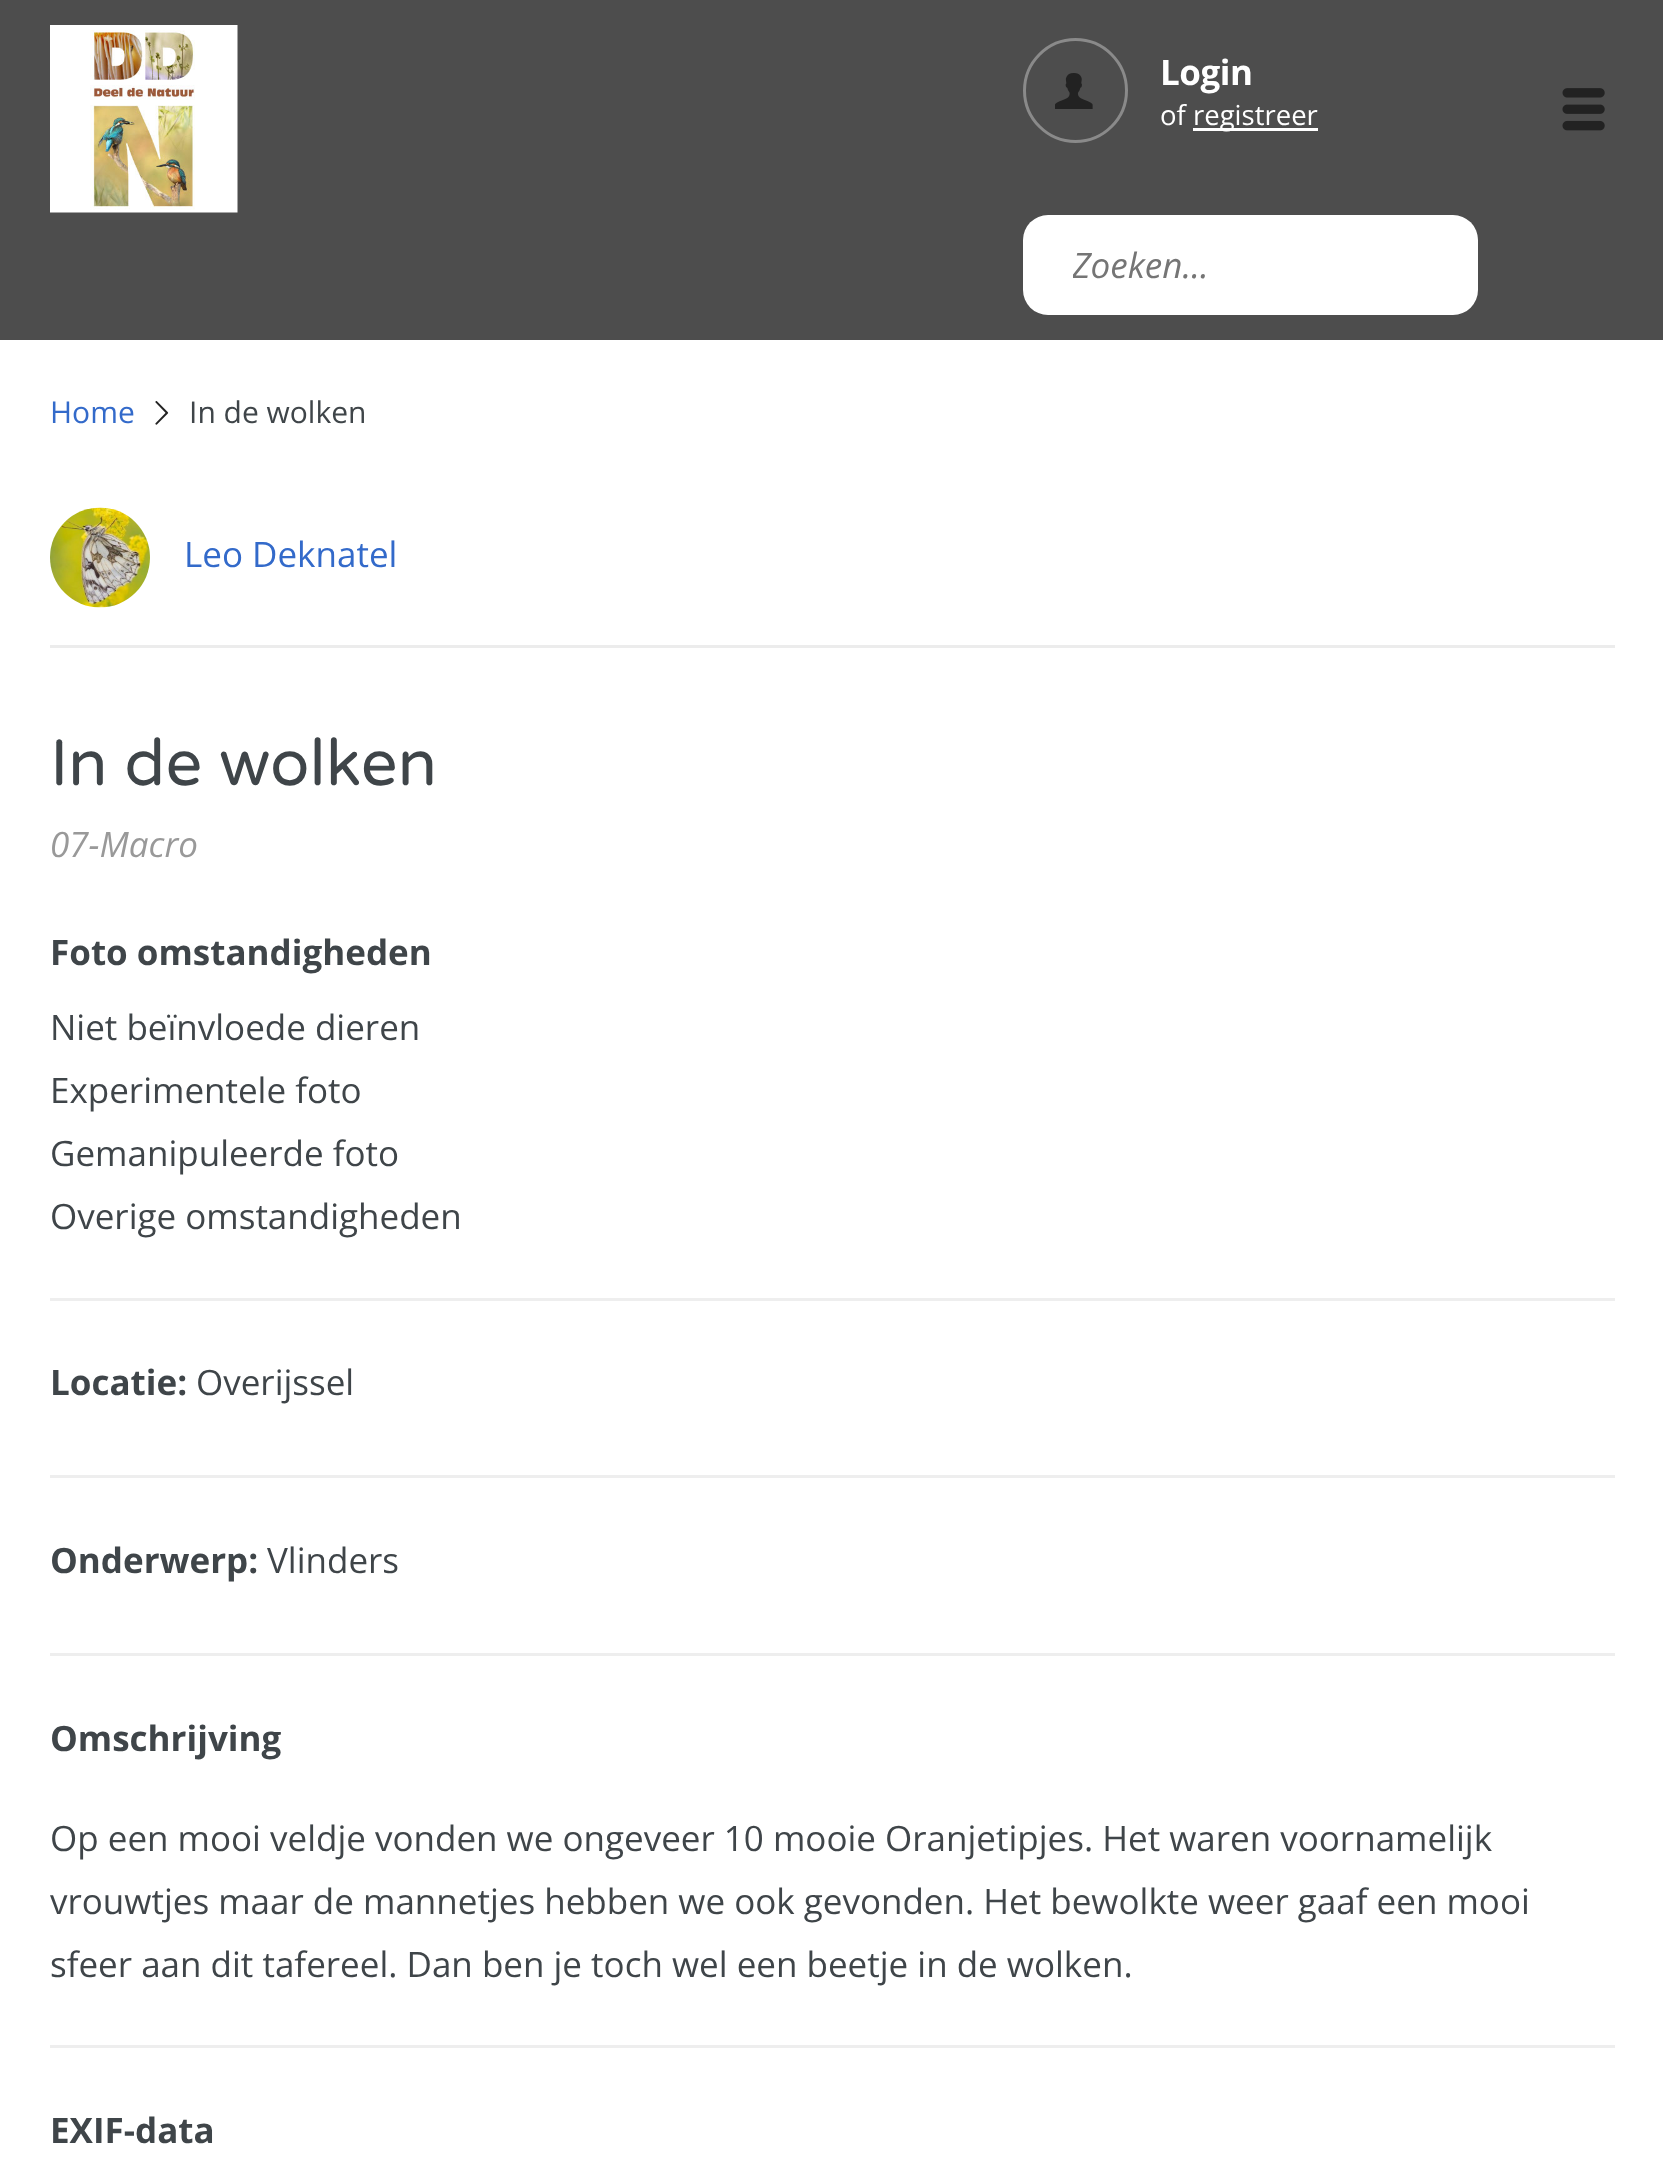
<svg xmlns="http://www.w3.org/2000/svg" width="1663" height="2166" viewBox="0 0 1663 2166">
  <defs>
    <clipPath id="clip1"><rect x="1073" y="240" width="380" height="48"/></clipPath>
  </defs>
  <rect width="100%" height="100%" fill="#ffffff"/>
  <rect x="0" y="0" width="1663" height="340" fill="#4d4d4d"/>
  <image x="50" y="25" width="188" height="188" href="img1.png"/>
  <circle cx="1075.5" cy="90.5" r="51" fill="none" stroke="#8a8a8a" stroke-width="3"/>
  <image x="1055" y="73" width="38" height="36" href="img2.png"/>
  <text x="1160" y="85" font-family="Open Sans" font-size="35" font-weight="bold" letter-spacing="-0.5" fill="#ffffff">Login</text>
  <text x="1160" y="125" font-family="Open Sans" font-size="27.5" fill="#ffffff">of</text>
  <rect x="1193" y="128" width="125" height="3" fill="#ffffff"/>
  <text x="1193" y="125" font-family="Open Sans" font-size="27.5" fill="#ffffff">registreer</text>
  <rect x="1023" y="215" width="455" height="100" rx="25" fill="#ffffff"/>
  <g clip-path="url(#clip1)">
    <text x="1072" y="278" font-family="Open Sans" font-size="35" font-style="italic" fill="#757575">Zoeken...</text>
  </g>
  <image x="1562" y="88" width="43" height="43" href="img3.png"/>
  <text x="50" y="423" font-family="Open Sans" font-size="30" fill="#336aca">Home</text>
  <image x="155" y="401" width="14" height="24" href="img4.png"/>
  <text x="189" y="423" font-family="Open Sans" font-size="30" fill="#3f4549">In de wolken</text>
  <rect x="50" y="645" width="1565" height="3" fill="#ececec"/>
  <image x="50" y="507" width="100" height="101" href="img5.png"/>
  <text x="184" y="567" font-family="Open Sans" font-size="35" fill="#336aca">Leo Deknatel</text>
  <text x="50" y="785" font-family="Varela Round" font-size="65" fill="#3f4549">In de wolken</text>
  <text x="50" y="857" font-family="Open Sans" font-size="35" font-style="italic" fill="#999999">07-Macro</text>
  <text x="50" y="965" font-family="Open Sans" font-size="35" font-weight="bold" fill="#3f4549">Foto omstandigheden</text>
  <text x="50" y="1040" font-family="Open Sans" font-size="35" fill="#3f4549">Niet beïnvloede dieren</text>
  <text x="50" y="1103" font-family="Open Sans" font-size="35" fill="#3f4549">Experimentele foto</text>
  <text x="50" y="1166" font-family="Open Sans" font-size="35" fill="#3f4549">Gemanipuleerde foto</text>
  <text x="50" y="1229" font-family="Open Sans" font-size="35" fill="#3f4549">Overige omstandigheden</text>
  <rect x="50" y="1298" width="1565" height="3" fill="#eeeeee"/>
  <text x="50" y="1395" font-family="Open Sans" font-size="35" font-weight="bold" fill="#3f4549">Locatie:</text>
  <text x="196" y="1395" font-family="Open Sans" font-size="35" fill="#3f4549">Overijssel</text>
  <rect x="50" y="1475" width="1565" height="3" fill="#eeeeee"/>
  <text x="50" y="1573" font-family="Open Sans" font-size="35" font-weight="bold" fill="#3f4549">Onderwerp:</text>
  <text x="267" y="1573" font-family="Open Sans" font-size="35" fill="#3f4549">Vlinders</text>
  <rect x="50" y="1653" width="1565" height="3" fill="#eeeeee"/>
  <text x="50" y="1751" font-family="Open Sans" font-size="35" font-weight="bold" fill="#3f4549">Omschrijving</text>
  <text x="50" y="1851" font-family="Open Sans" font-size="35" fill="#3f4549">Op een mooi veldje vonden we ongeveer 10 mooie Oranjetipjes. Het waren voornamelijk</text>
  <text x="50" y="1914" font-family="Open Sans" font-size="35" fill="#3f4549">vrouwtjes maar de mannetjes hebben we ook gevonden. Het bewolkte weer gaaf een mooi</text>
  <text x="50" y="1977" font-family="Open Sans" font-size="35" fill="#3f4549">sfeer aan dit tafereel. Dan ben je toch wel een beetje in de wolken.</text>
  <rect x="50" y="2045" width="1565" height="3" fill="#eeeeee"/>
  <text x="50" y="2143" font-family="Open Sans" font-size="35" font-weight="bold" fill="#3f4549">EXIF-data</text>
</svg>
